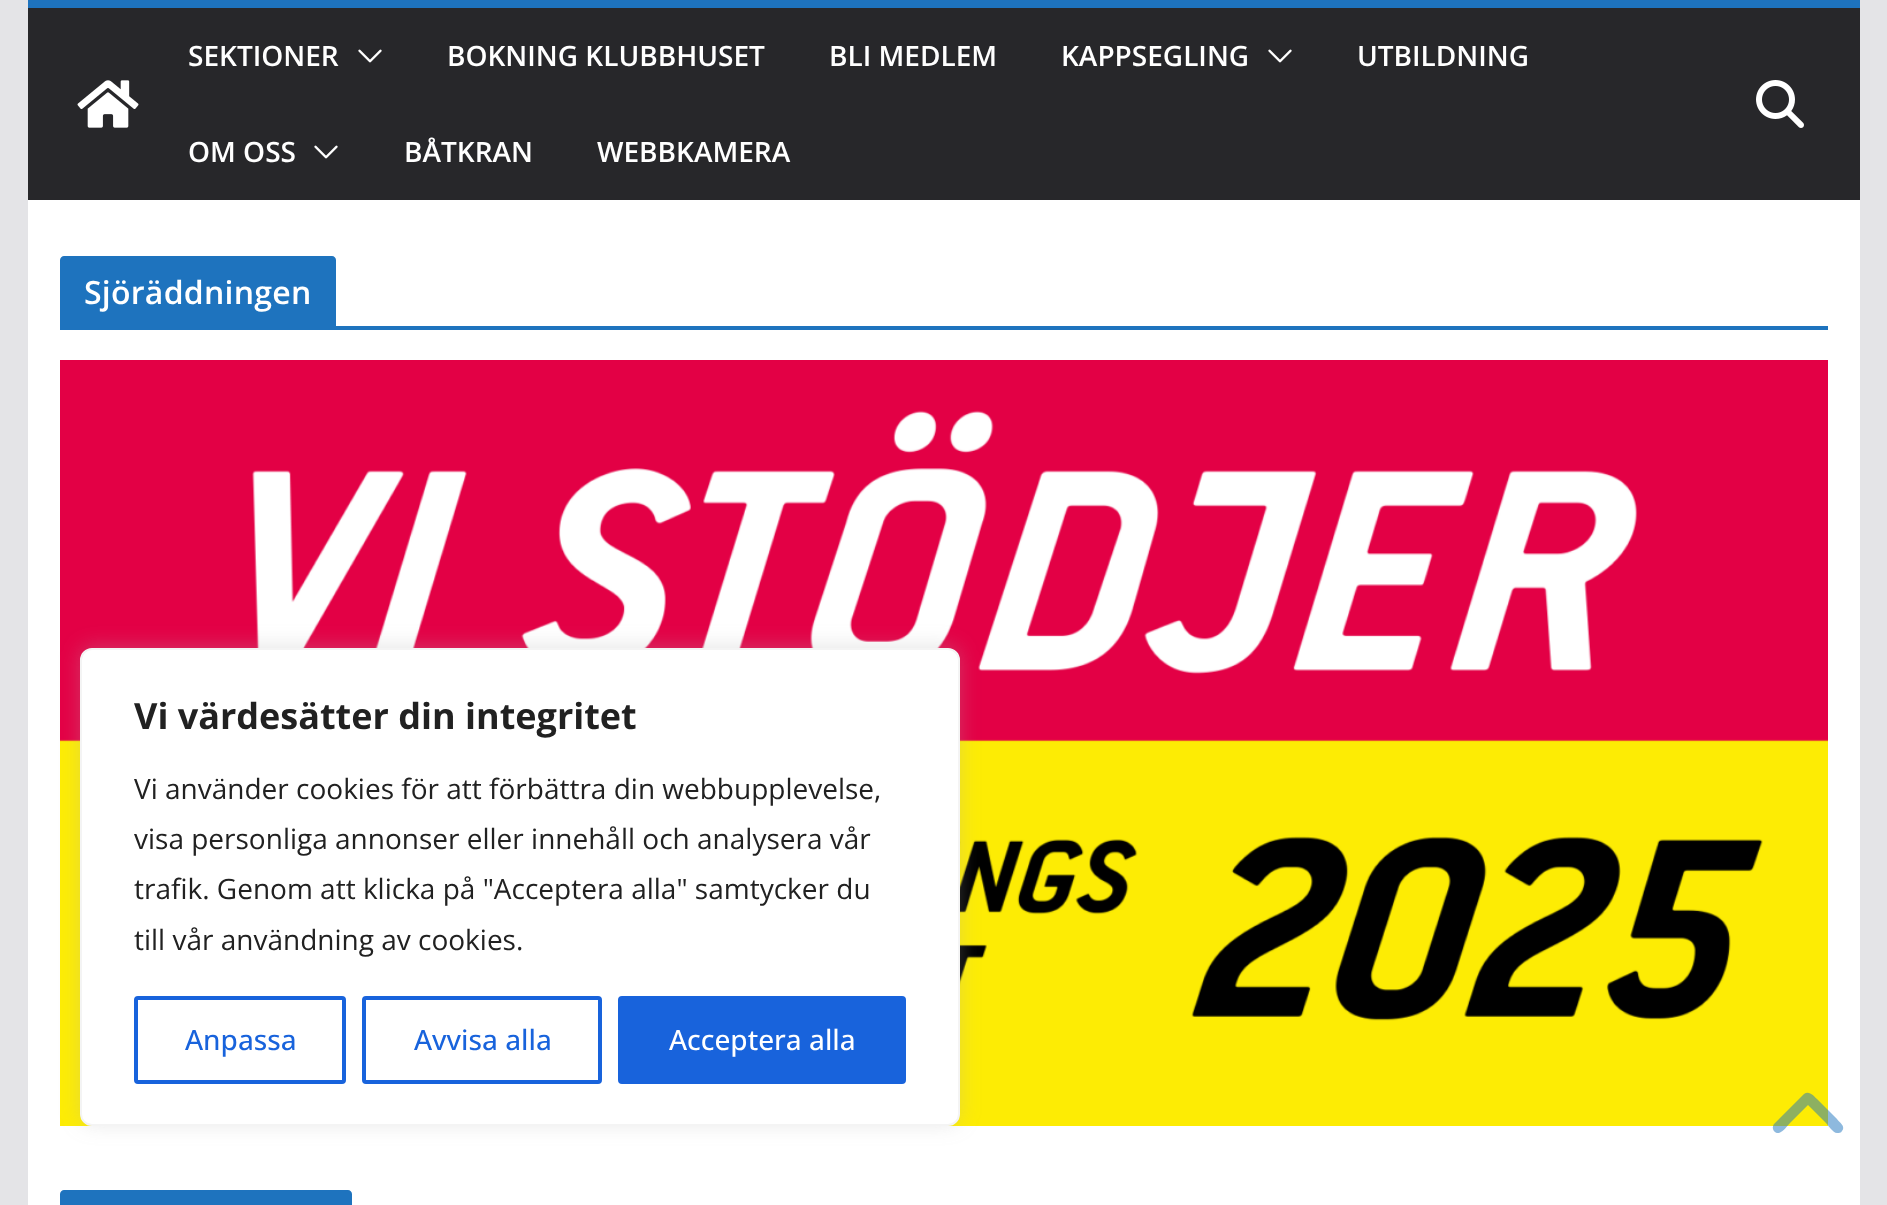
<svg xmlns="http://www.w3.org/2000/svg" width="1887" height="1205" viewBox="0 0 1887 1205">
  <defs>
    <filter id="blur1" x="-50%" y="-200%" width="200%" height="500%"><feGaussianBlur stdDeviation="10"/></filter>
  </defs>
  <rect width="100%" height="100%" fill="#e4e4e7"/>
  <rect x="28" y="8" width="1832" height="192" fill="#27272a"/>
  <rect x="28" y="0" width="1832" height="8" fill="#1e73be"/>
  <image x="77" y="80" width="62" height="48" href="img1.png"/>
  <text x="188" y="66" font-family="Open Sans" font-size="28" font-weight="600" fill="#ffffff">SEKTIONER</text>
  <image x="358" y="49" width="24" height="14" href="img2.png"/>
  <text x="447" y="66" font-family="Open Sans" font-size="28" font-weight="600" fill="#ffffff">BOKNING KLUBBHUSET</text>
  <text x="829" y="66" font-family="Open Sans" font-size="28" font-weight="600" fill="#ffffff">BLI MEDLEM</text>
  <text x="1061" y="66" font-family="Open Sans" font-size="28" font-weight="600" fill="#ffffff">KAPPSEGLING</text>
  <image x="1268" y="49" width="24" height="14" href="img2.png"/>
  <text x="1357" y="66" font-family="Open Sans" font-size="28" font-weight="600" fill="#ffffff">UTBILDNING</text>
  <text x="188" y="162" font-family="Open Sans" font-size="28" font-weight="600" fill="#ffffff">OM OSS</text>
  <image x="314" y="145" width="24" height="14" href="img2.png"/>
  <text x="404" y="162" font-family="Open Sans" font-size="28" font-weight="600" fill="#ffffff">BÅTKRAN</text>
  <text x="597" y="162" font-family="Open Sans" font-size="28" font-weight="600" fill="#ffffff">WEBBKAMERA</text>
  <image x="1756" y="80" width="48" height="48" href="img3.png"/>
  <rect x="28" y="200" width="1832" height="1005" fill="#ffffff"/>
  <rect x="60" y="326" width="1768" height="4" fill="#1e73be"/>
  <path d="M64 256H332C334 256 336 258 336 260V326H60V260C60 258 62 256 64 256Z" fill="#1e73be"/>
  <text x="84" y="304" font-family="Open Sans" font-size="32" font-weight="600" letter-spacing="0.25" fill="#ffffff">Sjöräddningen</text>
  <image x="60" y="360" width="1768" height="766" href="img4.png"/>
  <path d="M64 1190H348C350 1190 352 1192 352 1194V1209H60V1194C60 1192 62 1190 64 1190Z" fill="#1e73be"/>
  <path d="M1804 1094C1809 1090 1814 1096 1817 1099L1837 1119C1839 1122 1846 1126 1842 1131C1841 1133 1839 1133 1837 1133C1833 1133 1828 1125 1826 1123L1808 1105L1790 1123C1788 1125 1783 1132 1779 1133C1774 1134 1771 1128 1774 1124Z" fill="#1e73be" fill-opacity="0.5"/>
  <rect x="80" y="646" width="880" height="478" rx="12" fill="#acabab" fill-opacity="0.3" filter="url(#blur1)"/>
  <rect x="81" y="649" width="878" height="476" rx="11" fill="#ffffff" stroke="#f4f4f4" stroke-width="2"/>
  <text x="134" y="729" font-family="Open Sans" font-size="36" font-weight="bold" fill="#212121">Vi värdesätter din integritet</text>
  <text x="134" y="799" font-family="Open Sans" font-size="28" fill="#212121">Vi använder cookies för att förbättra din webbupplevelse,</text>
  <text x="134" y="849" font-family="Open Sans" font-size="28" fill="#212121">visa personliga annonser eller innehåll och analysera vår</text>
  <text x="134" y="899" font-family="Open Sans" font-size="28" fill="#212121">trafik. Genom att klicka på "Acceptera alla" samtycker du</text>
  <text x="134" y="950" font-family="Open Sans" font-size="28" fill="#212121">till vår användning av cookies.</text>
  <rect x="136" y="998" width="208" height="84" rx="2" fill="none" stroke="#1863dc" stroke-width="4"/>
  <text x="185" y="1050" font-family="Open Sans" font-size="28" font-weight="500" fill="#1863dc">Anpassa</text>
  <rect x="364" y="998" width="236" height="84" rx="2" fill="none" stroke="#1863dc" stroke-width="4"/>
  <text x="414" y="1050" font-family="Open Sans" font-size="28" font-weight="500" fill="#1863dc">Avvisa alla</text>
  <rect x="620" y="998" width="284" height="84" rx="2" fill="#1863dc" stroke="#1863dc" stroke-width="4"/>
  <text x="669" y="1050" font-family="Open Sans" font-size="28" font-weight="500" fill="#ffffff">Acceptera alla</text>
</svg>
